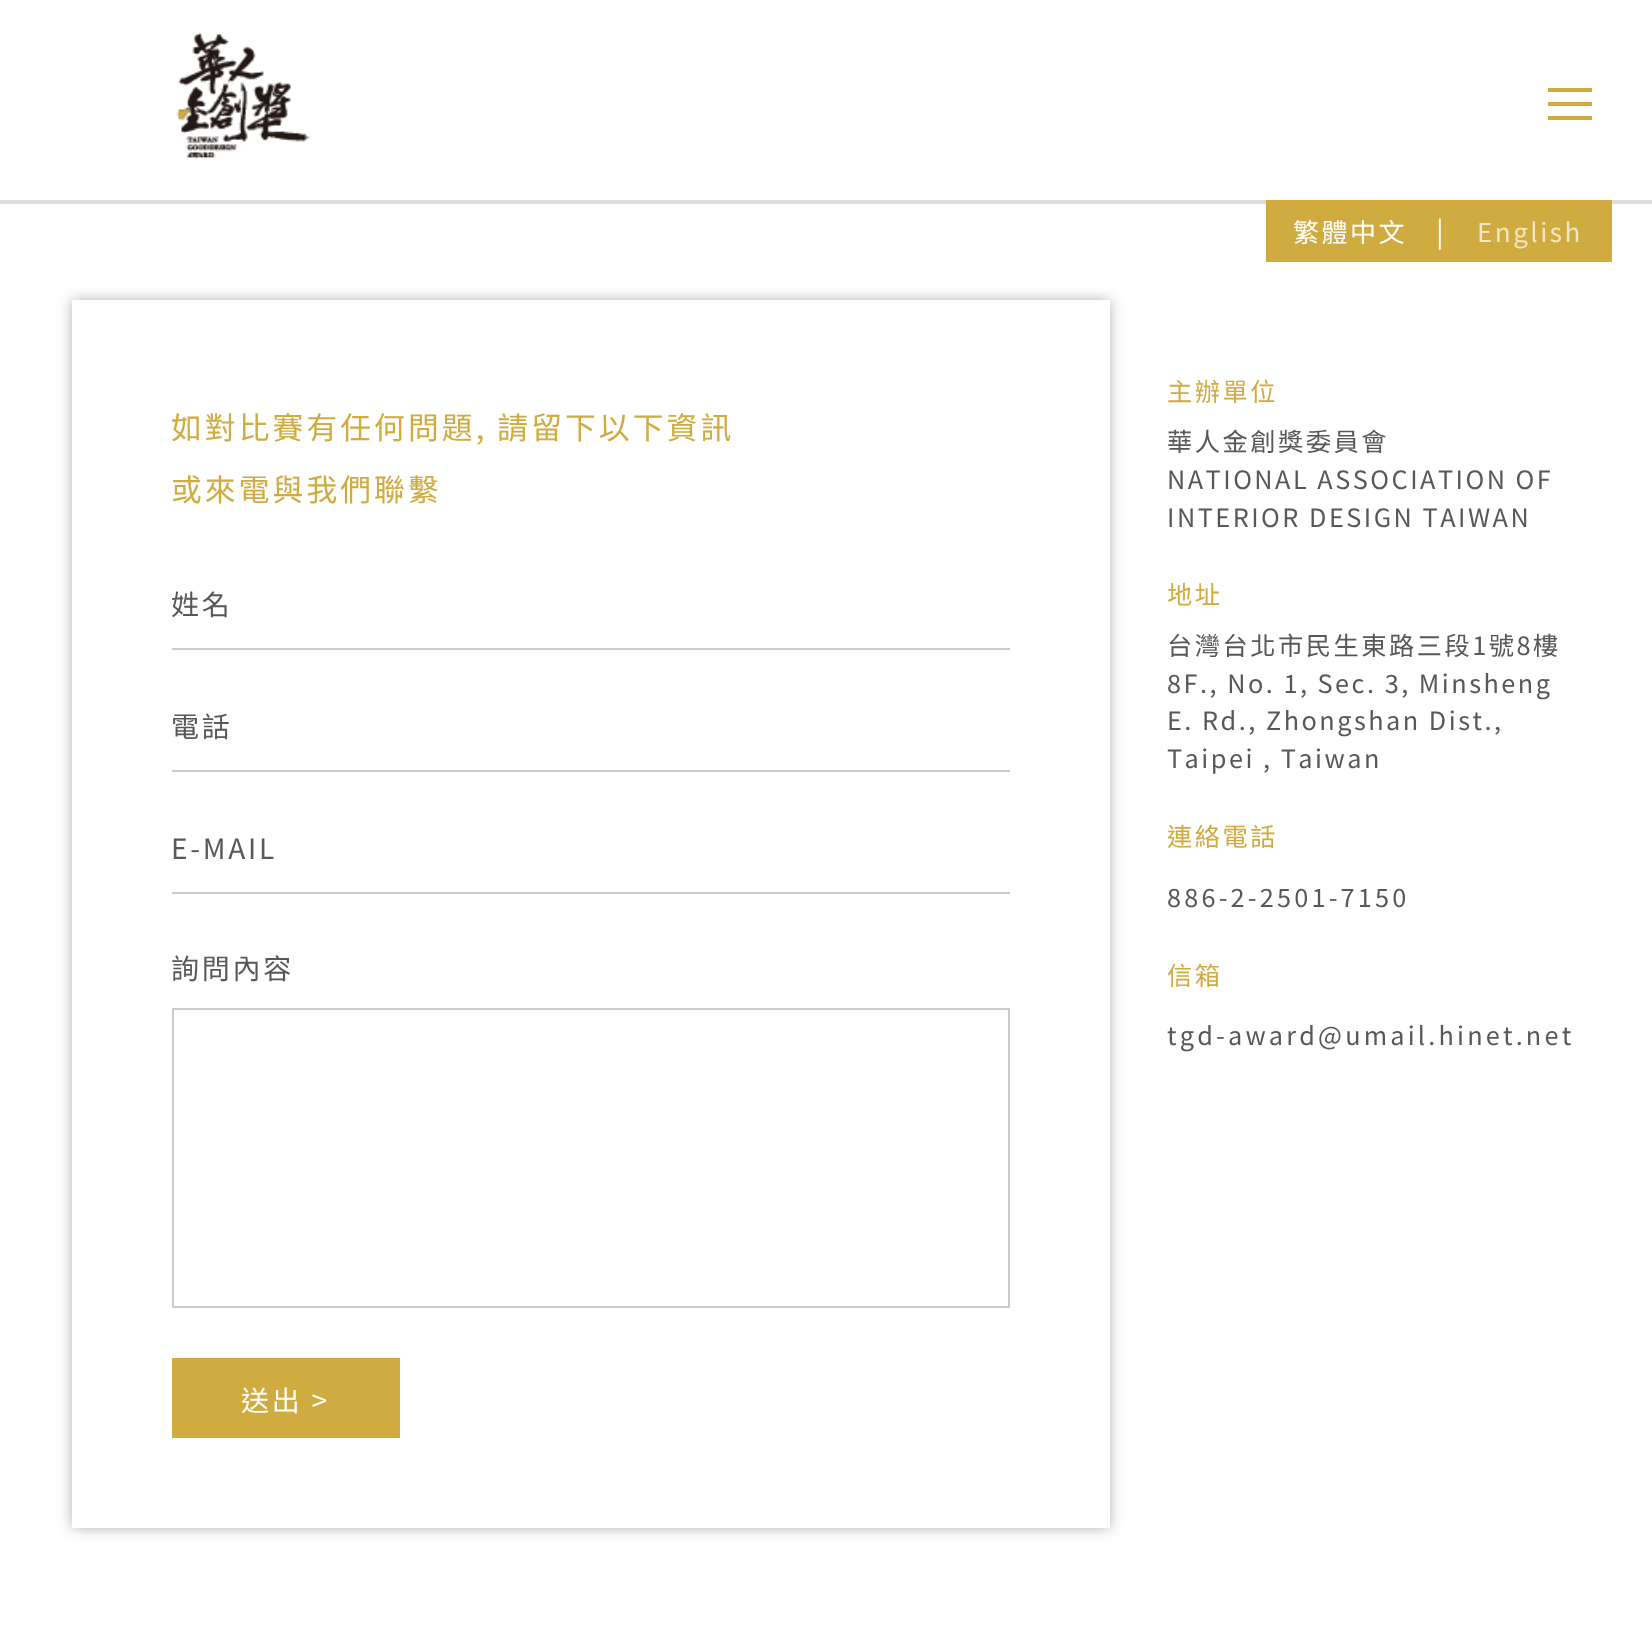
<svg xmlns="http://www.w3.org/2000/svg" width="1652" height="1643" viewBox="0 0 1652 1643">
  <style>*{font-kerning:none!important;font-variant-ligatures:none!important}</style>
  <defs>
    <clipPath id="clip1"><path d="M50 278H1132V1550H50ZM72 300H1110V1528H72Z" clip-rule="evenodd"/></clipPath>
    <filter id="blur1" x="-50%" y="-200%" width="200%" height="500%"><feGaussianBlur stdDeviation="7"/></filter>
  </defs>
  <rect width="100%" height="100%" fill="#ffffff"/>
  <rect x="0" y="200" width="1652" height="4" fill="#dddddd"/>
  <image x="176" y="32" width="134" height="127" href="img1.png"/>
  <rect x="1548" y="102" width="44" height="4" fill="#d0ab3f"/>
  <rect x="1548" y="88" width="44" height="4" fill="#d0ab3f"/>
  <rect x="1548" y="116" width="44" height="4" fill="#d0ab3f"/>
  <rect x="1266" y="200" width="346" height="62" fill="#d0ab3f"/>
  <text x="1293" y="242" font-family="Noto Sans TC" font-size="26" letter-spacing="2.5" fill="#ffffff">繁體中文</text>
  <text x="1436" y="242" font-family="Noto Sans TC" font-size="28" fill="#ffffff">|</text>
  <text x="1477" y="242" font-family="Noto Sans TC" font-size="26" letter-spacing="2.5" fill="#f1e6c5">English</text>
  <g clip-path="url(#clip1)">
    <rect x="72" y="300" width="1038" height="1228" fill="#000000" fill-opacity="0.3" filter="url(#blur1)"/>
  </g>
  <text x="171" y="439" font-family="Noto Sans TC" font-size="30.75" letter-spacing="3.1" fill="#d0ab3f">如對比賽有任何問題, 請留下以下資訊</text>
  <text x="171" y="501" font-family="Noto Sans TC" font-size="30.75" letter-spacing="3.1" fill="#d0ab3f">或來電與我們聯繫</text>
  <rect x="172" y="648" width="838" height="2" fill="#cccccc"/>
  <text x="171" y="615" font-family="Noto Sans TC" font-size="28" letter-spacing="2.75" fill="#595757">姓名</text>
  <rect x="172" y="770" width="838" height="2" fill="#cccccc"/>
  <text x="171" y="737" font-family="Noto Sans TC" font-size="28" letter-spacing="2.75" fill="#595757">電話</text>
  <rect x="172" y="892" width="838" height="2" fill="#cccccc"/>
  <text x="171" y="859" font-family="Noto Sans TC" font-size="28" letter-spacing="2.75" fill="#595757">E-MAIL</text>
  <text x="171" y="979" font-family="Noto Sans TC" font-size="28" letter-spacing="2.75" fill="#595757">詢問內容</text>
  <rect x="173" y="1009" width="836" height="298" fill="none" stroke="#cccccc" stroke-width="2"/>
  <rect x="172" y="1358" width="228" height="80" fill="#d0ab3f"/>
  <text x="241" y="1411" font-family="Noto Sans TC" font-size="28" letter-spacing="2.75" fill="#ffffff">送出 &gt;</text>
  <text x="1167" y="401" font-family="Noto Sans TC" font-size="25.25" letter-spacing="2.5" fill="#d0ab3f">主辦單位</text>
  <text x="1167" y="451" font-family="Noto Sans TC" font-size="25.25" letter-spacing="2.5" fill="#595757">華人金創獎委員會</text>
  <text x="1167" y="489" font-family="Noto Sans TC" font-size="25.25" letter-spacing="2.5" fill="#595757">NATIONAL ASSOCIATION OF</text>
  <text x="1167" y="527" font-family="Noto Sans TC" font-size="25.25" letter-spacing="2.5" fill="#595757">INTERIOR DESIGN TAIWAN</text>
  <text x="1167" y="604" font-family="Noto Sans TC" font-size="25.25" letter-spacing="2.5" fill="#d0ab3f">地址</text>
  <text x="1167" y="655" font-family="Noto Sans TC" font-size="25.25" letter-spacing="2.5" fill="#595757">台灣台北市民生東路三段1號8樓</text>
  <text x="1167" y="693" font-family="Noto Sans TC" font-size="25.25" letter-spacing="2.5" fill="#595757">8F., No. 1, Sec. 3, Minsheng</text>
  <text x="1167" y="730" font-family="Noto Sans TC" font-size="25.25" letter-spacing="2.5" fill="#595757">E. Rd., Zhongshan Dist.,</text>
  <text x="1167" y="768" font-family="Noto Sans TC" font-size="25.25" letter-spacing="2.5" fill="#595757">Taipei , Taiwan</text>
  <text x="1167" y="846" font-family="Noto Sans TC" font-size="25.25" letter-spacing="2.5" fill="#d0ab3f">連絡電話</text>
  <text x="1167" y="907" font-family="Noto Sans TC" font-size="25.25" letter-spacing="3.2" fill="#595757">886-2-2501-7150</text>
  <text x="1167" y="985" font-family="Noto Sans TC" font-size="25.25" letter-spacing="2.5" fill="#d0ab3f">信箱</text>
  <text x="1167" y="1045" font-family="Noto Sans TC" font-size="25.25" letter-spacing="3.2" fill="#595757">tgd-award@umail.hinet.net</text>
</svg>
